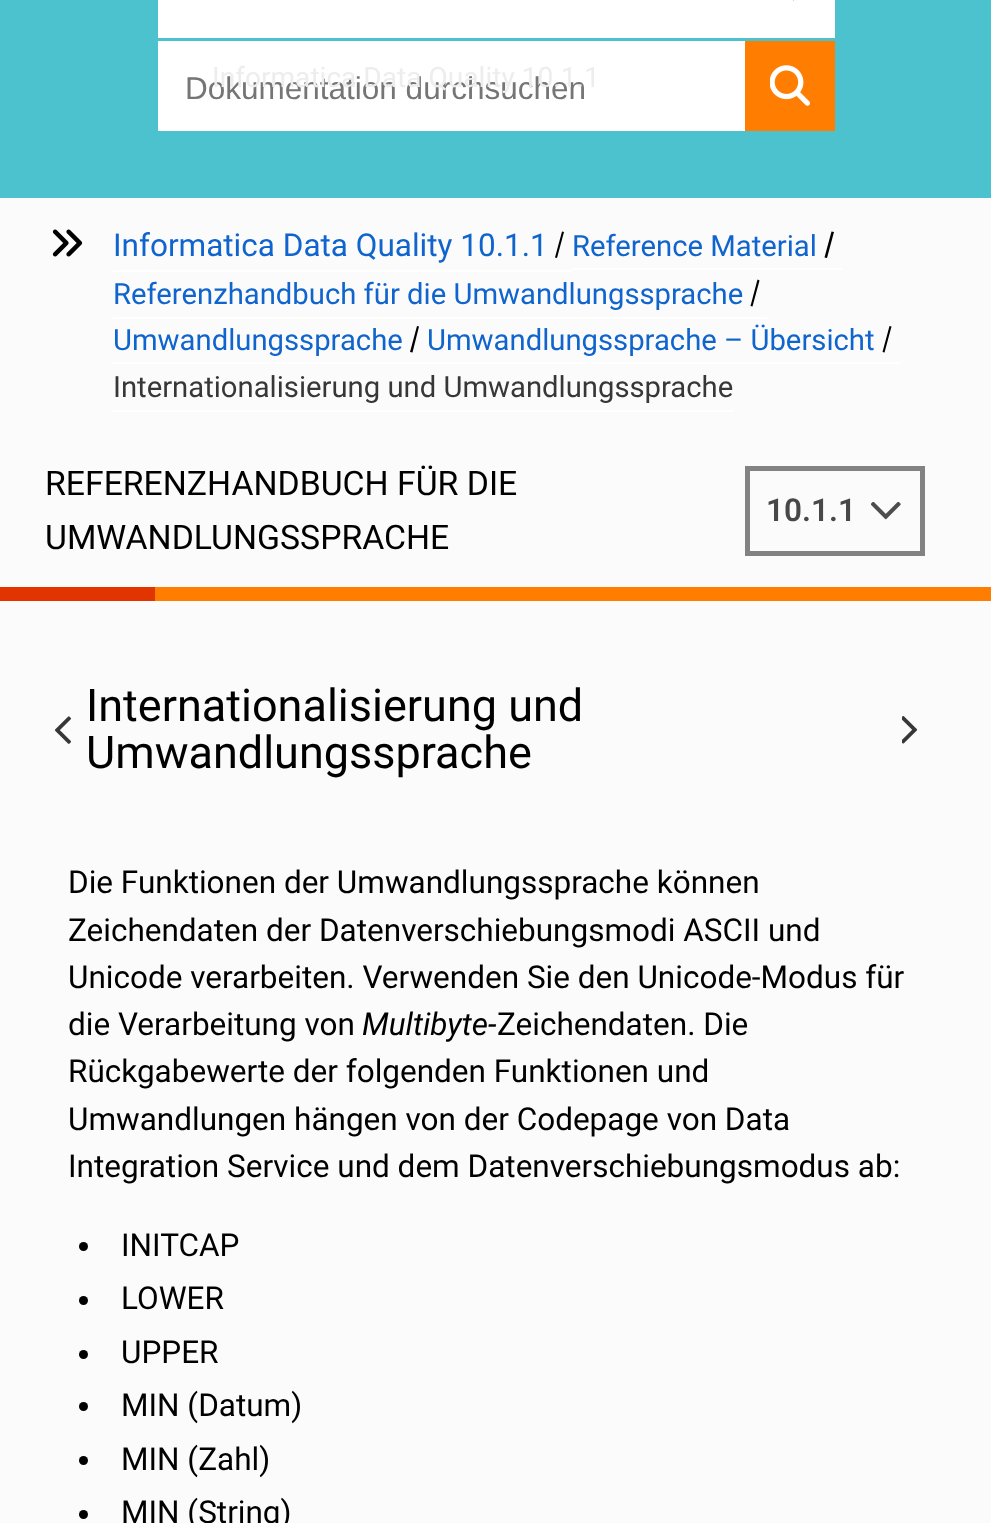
<svg xmlns="http://www.w3.org/2000/svg" width="991" height="1523" viewBox="0 0 991 1523">
  <rect width="100%" height="100%" fill="#4dc2cf"/>
  <rect x="158" y="0" width="677" height="38" fill="#ffffff"/>
  <path d="M803.5-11.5L793.5 .5L783.5-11.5Z" fill="#373737"/>
  <rect x="158" y="41" width="587" height="90" fill="#ffffff"/>
  <text x="185" y="99" font-family="Liberation Sans" font-size="31.5" fill="#757575">Dokumentation durchsuchen</text>
  <text x="212" y="87" font-family="Roboto" font-size="28.1" fill="#ededed">Informatica Data Quality 10.1.1</text>
  <rect x="745" y="41" width="90" height="90" fill="#ff7d00"/>
  <image x="770" y="65" width="40" height="41" href="img1.png"/>
  <rect x="0" y="198" width="991" height="1325" fill="#fbfbfb"/>
  <image x="52" y="229" width="31" height="28" href="img2.png"/>
  <rect x="113" y="270" width="459" height="2" fill="#ffffff"/>
  <text x="113" y="256" font-family="Roboto" font-size="31.5" fill="#0f64cd">Informatica Data Quality 10.1.1</text>
  <path d="M562 231.5L564 232L557 258L555 257.5Z" fill="#000000"/>
  <rect x="572" y="268" width="270" height="2" fill="#ffffff"/>
  <text x="572" y="256" font-family="Roboto" font-size="29.25" fill="#0f64cd">Reference Material</text>
  <path d="M831.5 231.5L834 232L827 258L824.5 257.5Z" fill="#000000"/>
  <rect x="113" y="317" width="654" height="2" fill="#ffffff"/>
  <text x="113" y="304" font-family="Roboto" font-size="29.25" fill="#0f64cd">Referenzhandbuch für die Umwandlungssprache</text>
  <path d="M757.5 279.5L759.5 280.5L752.5 306.5L750.5 306Z" fill="#000000"/>
  <rect x="113" y="362" width="787" height="2" fill="#ffffff"/>
  <text x="113" y="350" font-family="Roboto" font-size="29.25" fill="#0f64cd">Umwandlungssprache</text>
  <path d="M417 326L419 326.5L412.5 352.5L410 352Z" fill="#000000"/>
  <text x="427" y="350" font-family="Roboto" font-size="29.25" fill="#0f64cd">Umwandlungssprache – Übersicht</text>
  <path d="M889.5 326L891.5 326.5L884.5 352.5L882.5 352Z" fill="#000000"/>
  <rect x="113" y="410" width="621" height="2" fill="#ffffff"/>
  <text x="113" y="397" font-family="Roboto" font-size="29.25" fill="#373737">Internationalisierung und Umwandlungssprache</text>
  <text x="45" y="495" font-family="Roboto" font-size="33.75" fill="#000000">REFERENZHANDBUCH FÜR DIE</text>
  <text x="45" y="549" font-family="Roboto" font-size="33.75" fill="#000000">UMWANDLUNGSSPRACHE</text>
  <rect x="747.5" y="468.5" width="175" height="85" fill="none" stroke="#828282" stroke-width="5"/>
  <text x="766" y="521" font-family="Roboto" font-size="31.5" font-weight="600" fill="#484848">10.1.1</text>
  <image x="871" y="502" width="30" height="18" href="img3.png"/>
  <rect x="155" y="587" width="836" height="14" fill="#ff7d00"/>
  <rect x="0" y="587" width="155" height="14" fill="#e23400"/>
  <image x="54" y="716" width="17" height="28" href="img4.png"/>
  <text x="86" y="721" font-family="Roboto" font-size="45" fill="#000000">Internationalisierung und</text>
  <text x="86" y="768" font-family="Roboto" font-size="45" fill="#000000">Umwandlungssprache</text>
  <image x="902" y="716" width="16" height="28" href="img5.png"/>
  <text x="68" y="893" font-family="Roboto" font-size="31.5" fill="#000000">Die Funktionen der Umwandlungssprache können</text>
  <text x="68" y="941" font-family="Roboto" font-size="31.5" fill="#000000">Zeichendaten der Datenverschiebungsmodi ASCII und</text>
  <text x="68" y="988" font-family="Roboto" font-size="31.5" fill="#000000">Unicode verarbeiten. Verwenden Sie den Unicode-Modus für</text>
  <text x="68" y="1035" font-family="Roboto" font-size="31.5" fill="#000000">die Verarbeitung von</text>
  <text x="362" y="1035" font-family="Roboto" font-size="31.5" font-style="italic" fill="#000000">Multibyte-</text>
  <text x="497" y="1035" font-family="Roboto" font-size="31.5" fill="#000000">Zeichendaten. Die</text>
  <text x="68" y="1082" font-family="Roboto" font-size="31.5" fill="#000000">Rückgabewerte der folgenden Funktionen und</text>
  <text x="68" y="1130" font-family="Roboto" font-size="31.5" fill="#000000">Umwandlungen hängen von der Codepage von Data</text>
  <text x="68" y="1177" font-family="Roboto" font-size="31.5" fill="#000000">Integration Service und dem Datenverschiebungsmodus ab:</text>
  <circle cx="83.5" cy="1246.5" r="4.5" fill="#000000"/>
  <text x="121" y="1256" font-family="Roboto" font-size="31.5" fill="#000000">INITCAP</text>
  <circle cx="83.5" cy="1300.5" r="4.5" fill="#000000"/>
  <text x="121" y="1309" font-family="Roboto" font-size="31.5" fill="#000000">LOWER</text>
  <circle cx="83.5" cy="1354.5" r="4.5" fill="#000000"/>
  <text x="121" y="1363" font-family="Roboto" font-size="31.5" fill="#000000">UPPER</text>
  <circle cx="83.5" cy="1406.5" r="4.5" fill="#000000"/>
  <text x="121" y="1416" font-family="Roboto" font-size="31.5" fill="#000000">MIN (Datum)</text>
  <circle cx="83.5" cy="1460.5" r="4.5" fill="#000000"/>
  <text x="121" y="1470" font-family="Roboto" font-size="31.5" fill="#000000">MIN (Zahl)</text>
  <circle cx="83.5" cy="1514.5" r="4.5" fill="#000000"/>
  <text x="121" y="1523" font-family="Roboto" font-size="31.5" fill="#000000">MIN (String)</text>
</svg>
